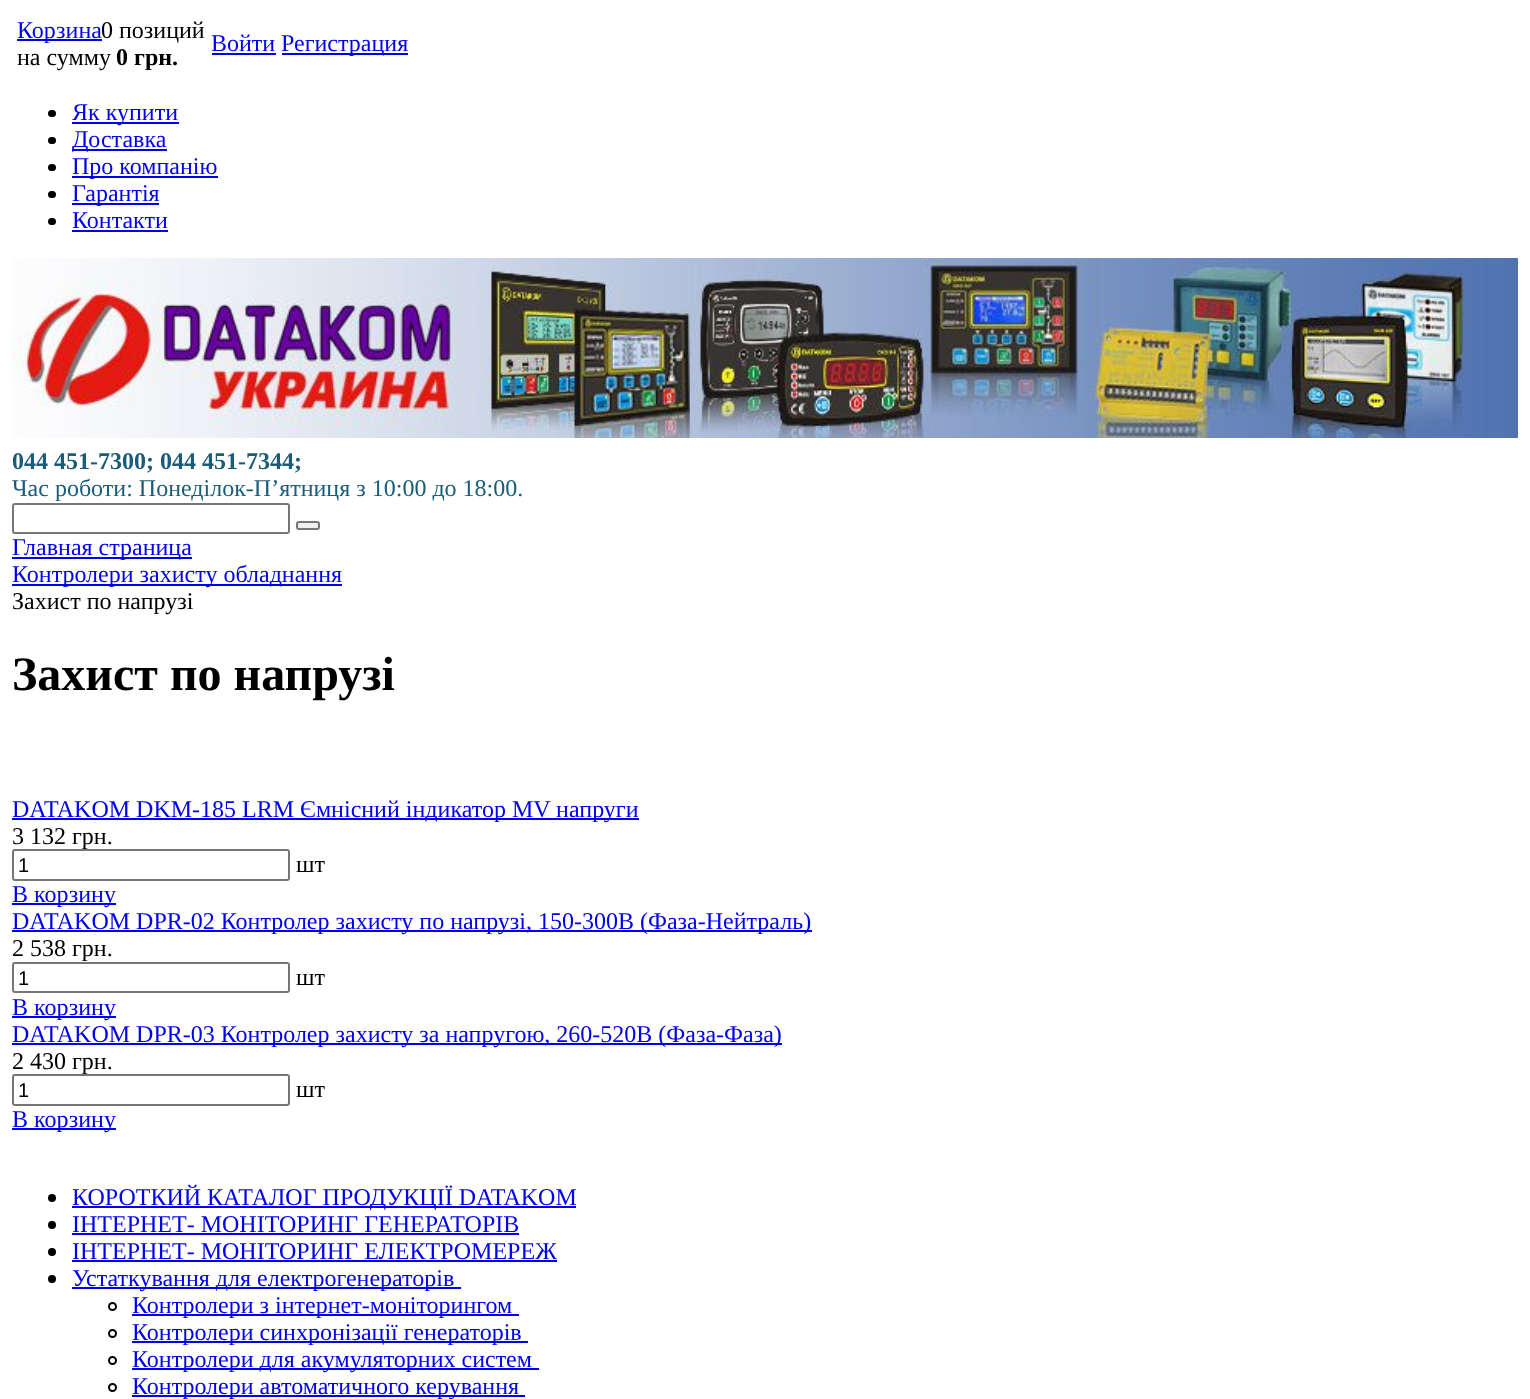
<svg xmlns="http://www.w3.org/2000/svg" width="1530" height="1399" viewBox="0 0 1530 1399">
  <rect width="100%" height="100%" fill="#ffffff"/>
  <rect x="17" y="39" width="85" height="2" fill="#0000ee"/>
  <text x="17" y="38" font-family="Liberation Serif" font-size="24" fill="#0000ee">Корзина</text>
  <text x="101" y="38" font-family="Liberation Serif" font-size="24" fill="#000000">0 позиций</text>
  <text x="17" y="65" font-family="Liberation Serif" font-size="24" fill="#000000">на сумму</text>
  <text x="116" y="65" font-family="Liberation Serif" font-size="24" font-weight="bold" fill="#000000">0 грн.</text>
  <text x="211" y="51" font-family="Liberation Serif" font-size="24" fill="#0000ee">Войти</text>
  <rect x="212" y="53" width="64" height="2" fill="#0000ee"/>
  <rect x="282" y="53" width="126" height="2" fill="#0000ee"/>
  <text x="281" y="51" font-family="Liberation Serif" font-size="24" fill="#0000ee">Регистрация</text>
  <rect x="48" y="110" width="8" height="7" rx="3.5" fill="#000000"/>
  <rect x="72" y="122" width="107" height="2" fill="#0000ee"/>
  <text x="72" y="120" font-family="Liberation Serif" font-size="24" fill="#0000ee">Як купити</text>
  <rect x="48" y="137" width="8" height="7" rx="3.5" fill="#000000"/>
  <rect x="72" y="149" width="95" height="2" fill="#0000ee"/>
  <text x="72" y="147" font-family="Liberation Serif" font-size="24" fill="#0000ee">Доставка</text>
  <rect x="48" y="164" width="8" height="7" rx="3.5" fill="#000000"/>
  <rect x="72" y="176" width="146" height="2" fill="#0000ee"/>
  <text x="72" y="174" font-family="Liberation Serif" font-size="24" fill="#0000ee">Про компанію</text>
  <rect x="48" y="191" width="8" height="7" rx="3.5" fill="#000000"/>
  <rect x="72" y="203" width="87" height="2" fill="#0000ee"/>
  <text x="72" y="201" font-family="Liberation Serif" font-size="24" fill="#0000ee">Гарантія</text>
  <rect x="48" y="218" width="8" height="7" rx="3.5" fill="#000000"/>
  <text x="72" y="228" font-family="Liberation Serif" font-size="24" fill="#0000ee">Контакти</text>
  <rect x="72" y="230" width="96" height="2" fill="#0000ee"/>
  <image x="12" y="258" width="1506" height="180" href="img1.png"/>
  <text x="12" y="469" font-family="Liberation Serif" font-size="24" font-weight="bold" fill="#1b5c79">044 451-7300; 044 451-7344;</text>
  <text x="12" y="496" font-family="Liberation Serif" font-size="24" fill="#1b5c79">Час роботи: Понеділок-П’ятниця з 10:00 до 18:00.</text>
  <rect x="13" y="504" width="276" height="29" rx="2" fill="none" stroke="#767676" stroke-width="2"/>
  <rect x="297" y="522" width="22" height="7" rx="2" fill="#efefef" stroke="#767676" stroke-width="2"/>
  <rect x="12" y="557" width="180" height="2" fill="#0000ee"/>
  <text x="12" y="555" font-family="Liberation Serif" font-size="24" fill="#0000ee">Главная страница</text>
  <rect x="12" y="584" width="330" height="2" fill="#0000ee"/>
  <text x="12" y="582" font-family="Liberation Serif" font-size="24" fill="#0000ee">Контролери захисту обладнання</text>
  <text x="12" y="609" font-family="Liberation Serif" font-size="24" fill="#000000">Захист по напрузі</text>
  <text x="12" y="690" font-family="Liberation Serif" font-size="48" font-weight="bold" fill="#000000">Захист по напрузі</text>
  <rect x="12" y="818" width="627" height="2" fill="#0000ee"/>
  <text x="12" y="817" font-family="Liberation Serif" font-size="24" fill="#0000ee">DATAKOM DKM-185 LRM Ємнісний індикатор MV напруги</text>
  <text x="12" y="844" font-family="Liberation Serif" font-size="24" fill="#000000">3 132 грн.</text>
  <rect x="13" y="850" width="276" height="30" rx="2" fill="#ffffff" stroke="#767676" stroke-width="2"/>
  <text x="18" y="872" font-family="Liberation Sans" font-size="20" fill="#000000">1</text>
  <text x="296" y="872" font-family="Liberation Serif" font-size="24" fill="#000000">шт</text>
  <rect x="12" y="903" width="104" height="2" fill="#0000ee"/>
  <text x="12" y="902" font-family="Liberation Serif" font-size="24" fill="#0000ee">В корзину</text>
  <rect x="12" y="930" width="800" height="2" fill="#0000ee"/>
  <text x="12" y="929" font-family="Liberation Serif" font-size="24" fill="#0000ee">DATAKOM DPR-02 Контролер захисту по напрузі, 150-300В (Фаза-Нейтраль)</text>
  <text x="12" y="956" font-family="Liberation Serif" font-size="24" fill="#000000">2 538 грн.</text>
  <rect x="13" y="963" width="276" height="29" rx="2" fill="none" stroke="#767676" stroke-width="2"/>
  <text x="18" y="985" font-family="Liberation Sans" font-size="20" fill="#000000">1</text>
  <text x="296" y="985" font-family="Liberation Serif" font-size="24" fill="#000000">шт</text>
  <rect x="12" y="1016" width="104" height="2" fill="#0000ee"/>
  <text x="12" y="1015" font-family="Liberation Serif" font-size="24" fill="#0000ee">В корзину</text>
  <rect x="12" y="1043" width="770" height="2" fill="#0000ee"/>
  <text x="12" y="1042" font-family="Liberation Serif" font-size="24" fill="#0000ee">DATAKOM DPR-03 Контролер захисту за напругою, 260-520В (Фаза-Фаза)</text>
  <text x="12" y="1069" font-family="Liberation Serif" font-size="24" fill="#000000">2 430 грн.</text>
  <rect x="13" y="1075" width="276" height="30" rx="2" fill="#ffffff" stroke="#767676" stroke-width="2"/>
  <text x="18" y="1097" font-family="Liberation Sans" font-size="20" fill="#000000">1</text>
  <text x="296" y="1097" font-family="Liberation Serif" font-size="24" fill="#000000">шт</text>
  <rect x="12" y="1128" width="104" height="2" fill="#0000ee"/>
  <text x="12" y="1127" font-family="Liberation Serif" font-size="24" fill="#0000ee">В корзину</text>
  <circle cx="52" cy="1198" r="4" fill="#000000"/>
  <rect x="72" y="1206" width="504" height="2" fill="#0000ee"/>
  <text x="72" y="1205" font-family="Liberation Serif" font-size="24" fill="#0000ee">КОРОТКИЙ КАТАЛОГ ПРОДУКЦІЇ DATAKOM</text>
  <circle cx="52" cy="1225" r="4" fill="#000000"/>
  <text x="72" y="1232" font-family="Liberation Serif" font-size="24" fill="#0000ee">ІНТЕРНЕТ- МОНІТОРИНГ ГЕНЕРАТОРІВ</text>
  <rect x="72" y="1233" width="447" height="2" fill="#0000ee"/>
  <circle cx="52" cy="1252" r="4" fill="#000000"/>
  <text x="72" y="1259" font-family="Liberation Serif" font-size="24" fill="#0000ee">ІНТЕРНЕТ- МОНІТОРИНГ ЕЛЕКТРОМЕРЕЖ</text>
  <rect x="72" y="1260" width="485" height="2" fill="#0000ee"/>
  <circle cx="52" cy="1279" r="4" fill="#000000"/>
  <rect x="72" y="1287" width="389" height="2" fill="#0000ee"/>
  <text x="72" y="1286" font-family="Liberation Serif" font-size="24" fill="#0000ee">Устаткування для електрогенераторів</text>
  <circle cx="112.5" cy="1306.5" r="3.5" fill="none" stroke="#000000" stroke-width="2"/>
  <rect x="132" y="1314" width="387" height="2" fill="#0000ee"/>
  <text x="132" y="1313" font-family="Liberation Serif" font-size="24" fill="#0000ee">Контролери з інтернет-моніторингом</text>
  <circle cx="112.5" cy="1333.5" r="3.5" fill="none" stroke="#000000" stroke-width="2"/>
  <rect x="132" y="1341" width="396" height="2" fill="#0000ee"/>
  <text x="132" y="1340" font-family="Liberation Serif" font-size="24" fill="#0000ee">Контролери синхронізації генераторів</text>
  <circle cx="112.5" cy="1360.5" r="3.5" fill="none" stroke="#000000" stroke-width="2"/>
  <rect x="132" y="1368" width="407" height="2" fill="#0000ee"/>
  <text x="132" y="1367" font-family="Liberation Serif" font-size="24" fill="#0000ee">Контролери для акумуляторних систем</text>
  <circle cx="112.5" cy="1387.5" r="3.5" fill="none" stroke="#000000" stroke-width="2"/>
  <rect x="132" y="1395" width="393" height="2" fill="#0000ee"/>
  <text x="132" y="1394" font-family="Liberation Serif" font-size="24" fill="#0000ee">Контролери автоматичного керування</text>
</svg>
